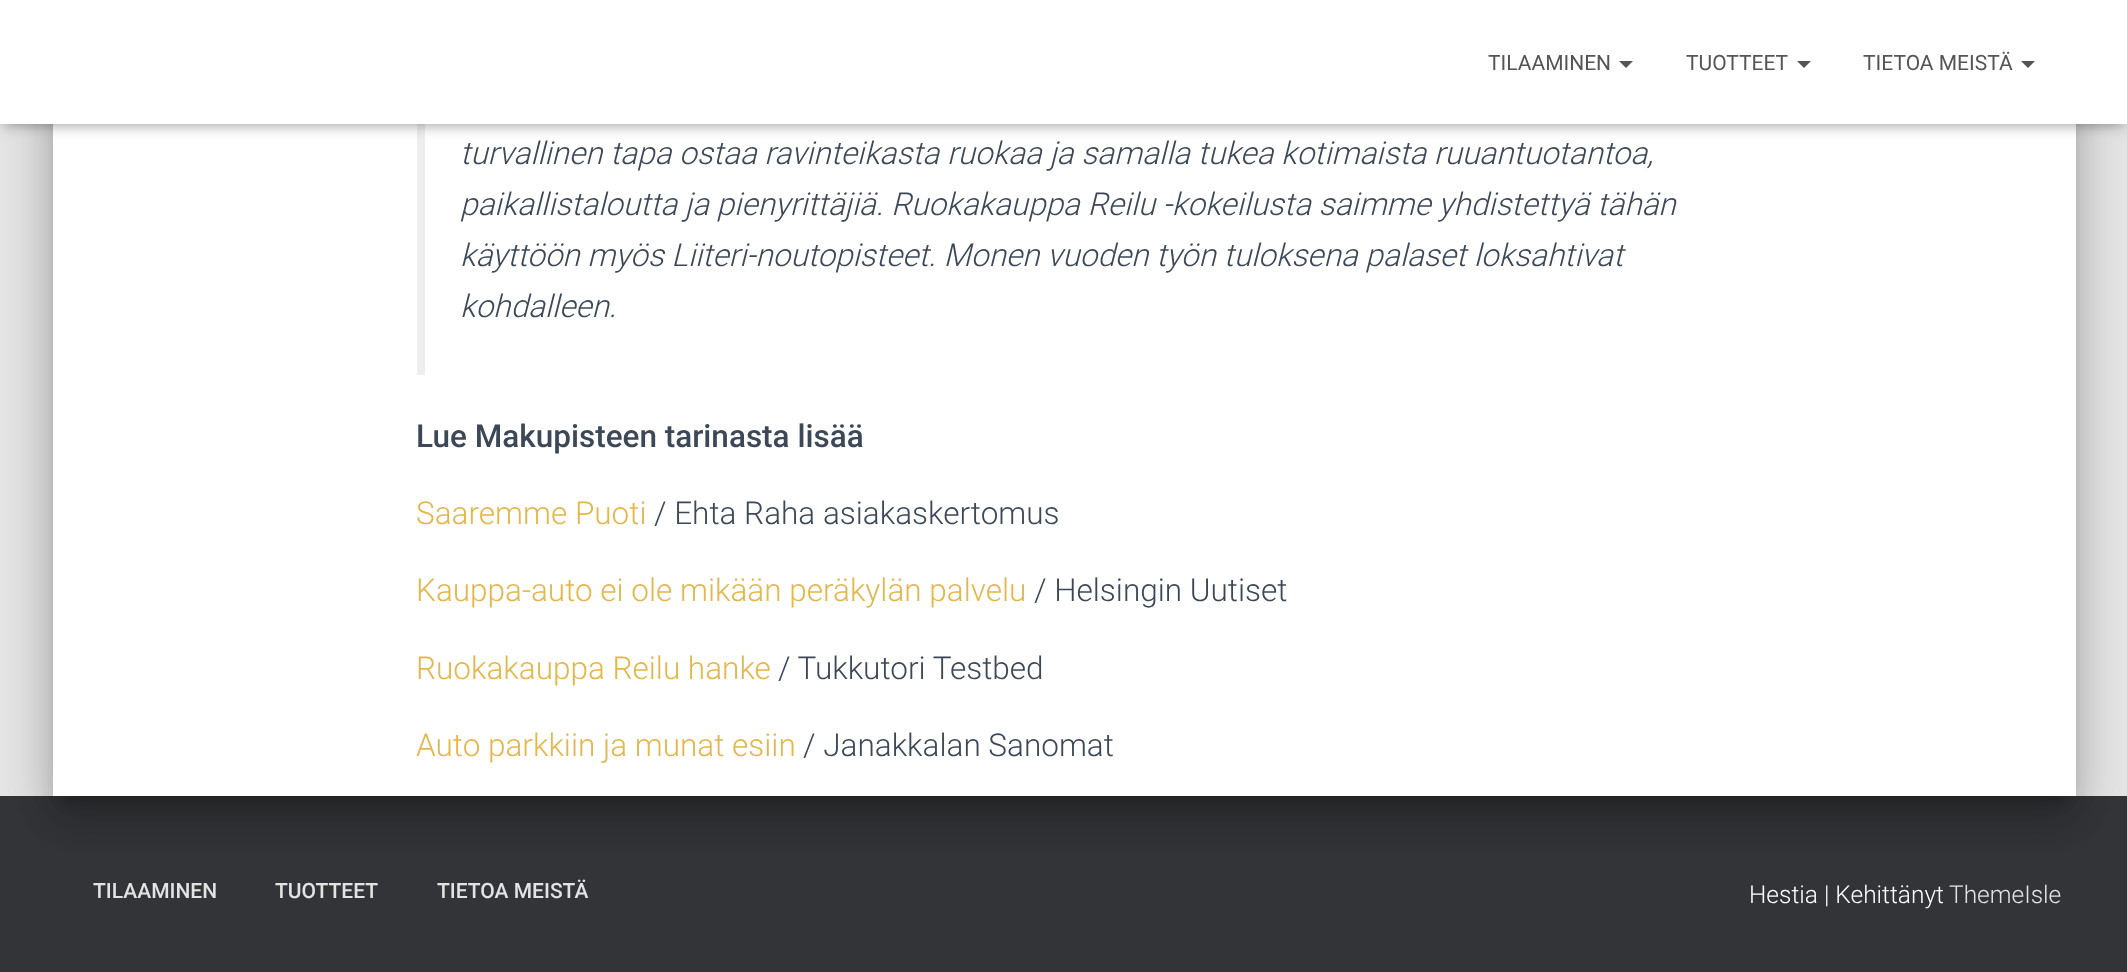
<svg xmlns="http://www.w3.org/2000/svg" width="2127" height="972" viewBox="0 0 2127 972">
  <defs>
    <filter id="blur1" x="-50%" y="-200%" width="200%" height="500%"><feGaussianBlur stdDeviation="9"/></filter>
    <filter id="blur2" x="-50%" y="-200%" width="200%" height="500%"><feGaussianBlur stdDeviation="26"/></filter>
    <filter id="blur3" x="-50%" y="-200%" width="200%" height="500%"><feGaussianBlur stdDeviation="21"/></filter>
    <filter id="blur4" x="-50%" y="-200%" width="200%" height="500%"><feGaussianBlur stdDeviation="4.5"/></filter>
  </defs>
  <rect width="100%" height="100%" fill="#e5e5e5"/>
  <rect x="0" y="796" width="2127" height="176" fill="#323437"/>
  <rect x="61" y="-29" width="2006" height="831" rx="2" fill="#000000" fill-opacity="0.2" filter="url(#blur1)"/>
  <rect x="44" y="-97" width="2040" height="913" rx="19" fill="#000000" fill-opacity="0.12" filter="url(#blur2)"/>
  <rect x="49" y="-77" width="2030" height="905" rx="14" fill="#000000" fill-opacity="0.14" filter="url(#blur3)"/>
  <rect x="53" y="124" width="2023" height="672" fill="#ffffff"/>
  <rect x="417" y="124" width="8" height="251" fill="#eeeeee"/>
  <rect x="4" y="11" width="2121" height="117" fill="#000000" fill-opacity="0.1" filter="url(#blur4)"/>
  <rect x="0" y="2" width="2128" height="124" fill="#000000" fill-opacity="0.12" filter="url(#blur1)"/>
  <rect x="11" y="12" width="2107" height="104" fill="#000000" fill-opacity="0.42" filter="url(#blur1)"/>
  <rect x="0" y="0" width="2127" height="124" fill="#ffffff"/>
  <text x="1488" y="70" font-family="Roboto" font-size="21" fill="#555555">TILAAMINEN</text>
  <path d="M1619 61H1633L1626 68Z" fill="#555555"/>
  <text x="1686" y="70" font-family="Roboto" font-size="21" fill="#555555">TUOTTEET</text>
  <path d="M1797 61H1811L1804 68Z" fill="#555555"/>
  <text x="1863" y="70" font-family="Roboto" font-size="21" fill="#555555">TIETOA MEISTÄ</text>
  <path d="M2021 61H2035L2028 68Z" fill="#555555"/>
  <text x="460" y="164" font-family="Roboto" font-size="31.5" font-weight="300" font-style="italic" fill="#3c4858">turvallinen tapa ostaa ravinteikasta ruokaa ja samalla tukea kotimaista ruuantuotantoa,</text>
  <text x="460" y="215" font-family="Roboto" font-size="31.5" font-weight="300" font-style="italic" fill="#3c4858">paikallistaloutta ja pienyrittäjiä. Ruokakauppa Reilu -kokeilusta saimme yhdistettyä tähän</text>
  <text x="460" y="266" font-family="Roboto" font-size="31.5" font-weight="300" font-style="italic" fill="#3c4858">käyttöön myös Liiteri-noutopisteet. Monen vuoden työn tuloksena palaset loksahtivat</text>
  <text x="460" y="317" font-family="Roboto" font-size="31.5" font-weight="300" font-style="italic" fill="#3c4858">kohdalleen.</text>
  <text x="416" y="447" font-family="Roboto" font-size="31.5" font-weight="500" fill="#3c4858">Lue Makupisteen tarinasta lisää</text>
  <text x="416" y="524" font-family="Roboto" font-size="31.5" font-weight="300" fill="#e5b649">Saaremme Puoti</text>
  <text x="654" y="524" font-family="Roboto" font-size="31.5" font-weight="300" fill="#3c4858">/ Ehta Raha asiakaskertomus</text>
  <text x="416" y="601" font-family="Roboto" font-size="31.5" font-weight="300" fill="#e5b649">Kauppa-auto ei ole mikään peräkylän palvelu</text>
  <text x="1034" y="601" font-family="Roboto" font-size="31.5" font-weight="300" fill="#3c4858">/ Helsingin Uutiset</text>
  <text x="416" y="679" font-family="Roboto" font-size="31.5" font-weight="300" fill="#e5b649">Ruokakauppa Reilu hanke</text>
  <text x="778" y="679" font-family="Roboto" font-size="31.5" font-weight="300" fill="#3c4858">/ Tukkutori Testbed</text>
  <text x="416" y="756" font-family="Roboto" font-size="31.5" font-weight="300" fill="#e5b649">Auto parkkiin ja munat esiin</text>
  <text x="803" y="756" font-family="Roboto" font-size="31.5" font-weight="300" fill="#3c4858">/ Janakkalan Sanomat</text>
  <text x="93" y="898" font-family="Roboto" font-size="21" font-weight="500" fill="#e2e3e3">TILAAMINEN</text>
  <text x="275" y="898" font-family="Roboto" font-size="21" font-weight="500" fill="#e2e3e3">TUOTTEET</text>
  <text x="437" y="898" font-family="Roboto" font-size="21" font-weight="500" fill="#e2e3e3">TIETOA MEISTÄ</text>
  <text x="1749" y="903" font-family="Roboto" font-size="24.5" font-weight="300" fill="#ffffff">Hestia | Kehittänyt</text>
  <text x="1949" y="903" font-family="Roboto" font-size="24.5" font-weight="300" fill="#e2e3e3">ThemeIsle</text>
</svg>
